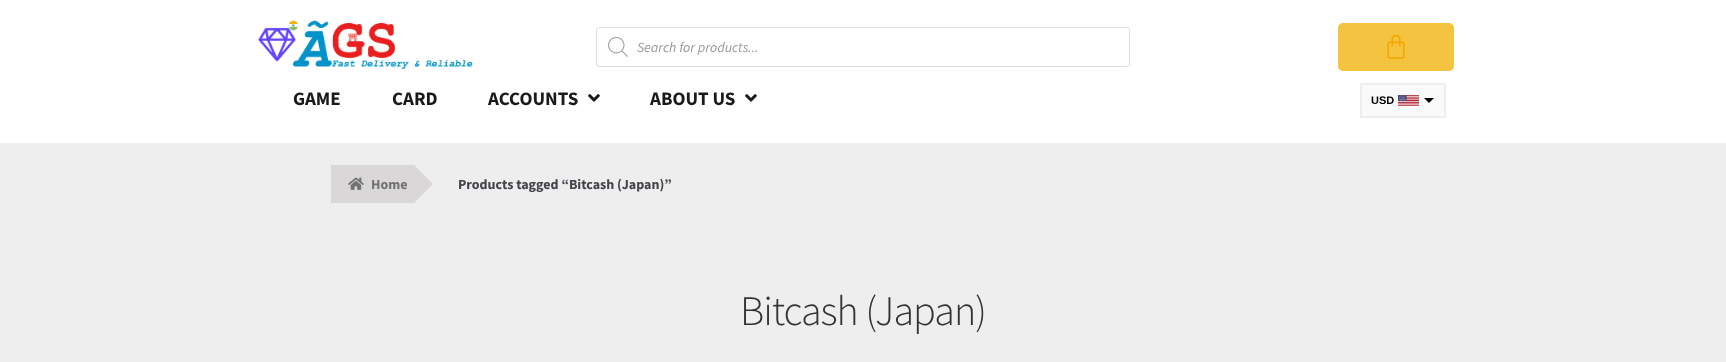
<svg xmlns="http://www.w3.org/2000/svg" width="1726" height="362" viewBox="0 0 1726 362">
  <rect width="100%" height="100%" fill="#eeeeee"/>
  <rect x="0" y="0" width="1726" height="143" fill="#ffffff"/>
  <image x="258" y="20" width="215" height="49" href="img1.png"/>
  <rect x="596.5" y="27.5" width="533" height="39" rx="2.5" fill="none" stroke="#dddddd"/>
  <image x="608" y="37" width="20" height="20" href="img2.png"/>
  <text x="637" y="52" font-family="Source Sans Pro" font-size="14" font-style="italic" fill="#999999">Search for products...</text>
  <rect x="1338" y="23" width="116" height="48" rx="5" fill="#f4c340"/>
  <image x="1387" y="34" width="18" height="25" href="img3.png"/>
  <text x="293" y="105" font-family="Source Sans Pro" font-size="19" font-weight="bold" fill="#1a1a1a">GAME</text>
  <text x="392" y="105" font-family="Source Sans Pro" font-size="19" font-weight="bold" fill="#1a1a1a">CARD</text>
  <text x="488" y="105" font-family="Source Sans Pro" font-size="19" font-weight="bold" fill="#1a1a1a">ACCOUNTS</text>
  <image x="588" y="94" width="12" height="8" href="img4.png"/>
  <text x="650" y="105" font-family="Source Sans Pro" font-size="19" font-weight="bold" fill="#1a1a1a">ABOUT US</text>
  <image x="745" y="94" width="12" height="8" href="img4.png"/>
  <rect x="1360" y="83" width="86" height="35" fill="#eeeeee"/>
  <rect x="1362" y="85" width="82" height="31" fill="#fafafa"/>
  <text x="1371" y="104" font-family="Liberation Sans" font-size="11" font-weight="bold" fill="#000000">USD</text>
  <image x="1398" y="95" width="21" height="11" href="img5.png"/>
  <path d="M1424 98H1434L1429 103Z" fill="#000000"/>
  <rect x="331" y="165" width="84" height="38" fill="#d9d7d7"/>
  <image x="348" y="177" width="16" height="13" href="img6.png"/>
  <text x="371" y="189" font-family="Source Sans Pro" font-size="14" font-weight="bold" fill="#727272">Home</text>
  <path d="M415 202V166L433 184Z" fill="#d9d7d7"/>
  <text x="458" y="189" font-family="Source Sans Pro" font-size="14" font-weight="bold" fill="#43454b">Products tagged “Bitcash (Japan)”</text>
  <text x="740" y="325" font-family="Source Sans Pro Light" font-size="42" font-weight="300" letter-spacing="-1" fill="#333333">Bitcash (Japan)</text>
</svg>
